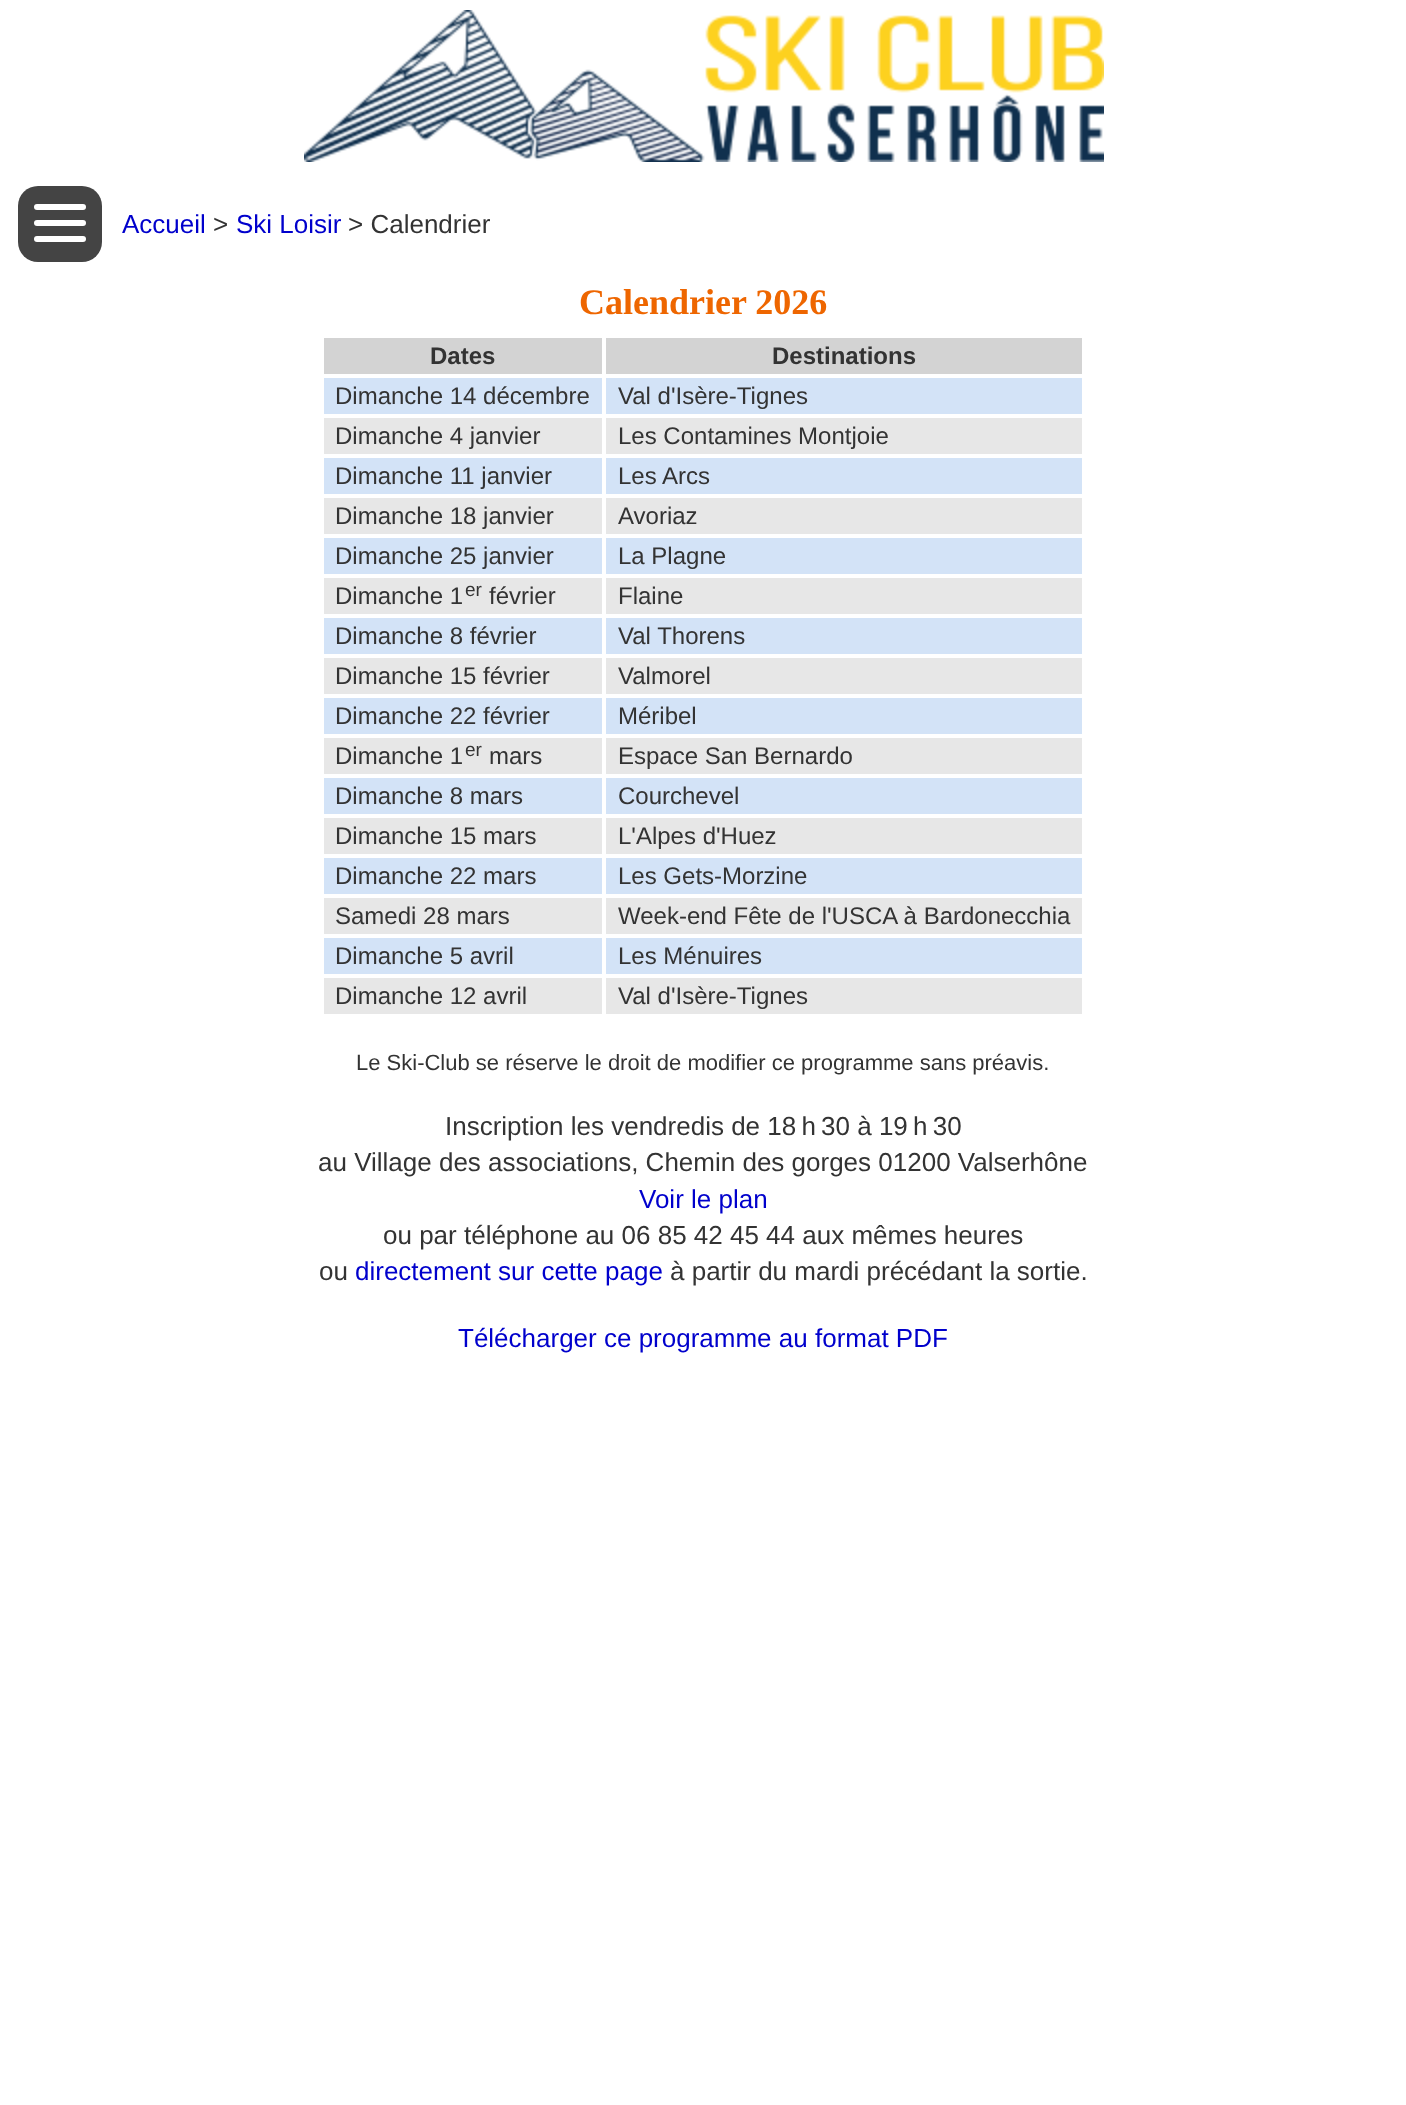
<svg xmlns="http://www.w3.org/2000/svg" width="1406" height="2105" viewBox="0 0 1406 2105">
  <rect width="100%" height="100%" fill="#ffffff"/>
  <image x="304" y="10" width="800" height="152" href="img1.png"/>
  <rect x="18" y="186" width="84" height="76" rx="20" fill="#444444"/>
  <rect x="34" y="220" width="52" height="6" rx="3" fill="#ffffff"/>
  <rect x="34" y="204" width="52" height="6" rx="3" fill="#ffffff"/>
  <rect x="34" y="236" width="52" height="6" rx="3" fill="#ffffff"/>
  <text x="122" y="233" font-family="Liberation Sans" font-size="26" fill="#0000cc">Accueil</text>
  <text x="213" y="233" font-family="Liberation Sans" font-size="26" fill="#333333">&gt;</text>
  <text x="236" y="233" font-family="Liberation Sans" font-size="26" fill="#0000cc">Ski Loisir</text>
  <text x="348" y="233" font-family="Liberation Sans" font-size="26" fill="#333333">&gt; Calendrier</text>
  <text x="579" y="314" font-family="Liberation Serif" font-size="36" font-weight="bold" fill="#ee6600">Calendrier 2026</text>
  <rect x="324" y="338" width="758" height="36" fill="#d3d3d3"/>
  <text x="430" y="364" font-family="Liberation Sans" font-size="24" font-weight="bold" fill="#333333">Dates</text>
  <text x="772" y="364" font-family="Liberation Sans" font-size="24" font-weight="bold" fill="#333333">Destinations</text>
  <rect x="324" y="378" width="758" height="36" fill="#d3e3f7"/>
  <text x="335" y="404" font-family="Liberation Sans" font-size="24" fill="#333333">Dimanche 14 décembre</text>
  <text x="618" y="404" font-family="Liberation Sans" font-size="24" fill="#333333">Val d'Isère-Tignes</text>
  <rect x="324" y="418" width="758" height="36" fill="#e7e7e7"/>
  <text x="335" y="444" font-family="Liberation Sans" font-size="24" fill="#333333">Dimanche 4 janvier</text>
  <text x="618" y="444" font-family="Liberation Sans" font-size="24" fill="#333333">Les Contamines Montjoie</text>
  <rect x="324" y="458" width="758" height="36" fill="#d3e3f7"/>
  <text x="335" y="484" font-family="Liberation Sans" font-size="24" fill="#333333">Dimanche 11 janvier</text>
  <text x="618" y="484" font-family="Liberation Sans" font-size="24" fill="#333333">Les Arcs</text>
  <rect x="324" y="498" width="758" height="36" fill="#e7e7e7"/>
  <text x="335" y="524" font-family="Liberation Sans" font-size="24" fill="#333333">Dimanche 18 janvier</text>
  <text x="618" y="524" font-family="Liberation Sans" font-size="24" fill="#333333">Avoriaz</text>
  <rect x="324" y="538" width="758" height="36" fill="#d3e3f7"/>
  <text x="335" y="564" font-family="Liberation Sans" font-size="24" fill="#333333">Dimanche 25 janvier</text>
  <text x="618" y="564" font-family="Liberation Sans" font-size="24" fill="#333333">La Plagne</text>
  <rect x="324" y="578" width="758" height="36" fill="#e7e7e7"/>
  <text x="335" y="604" font-family="Liberation Sans" font-size="24" fill="#333333">Dimanche 1</text>
  <text x="465" y="596" font-family="Liberation Sans" font-size="19" fill="#333333">er</text>
  <text x="489" y="604" font-family="Liberation Sans" font-size="24" fill="#333333">février</text>
  <text x="618" y="604" font-family="Liberation Sans" font-size="24" fill="#333333">Flaine</text>
  <rect x="324" y="618" width="758" height="36" fill="#d3e3f7"/>
  <text x="335" y="644" font-family="Liberation Sans" font-size="24" fill="#333333">Dimanche 8 février</text>
  <text x="618" y="644" font-family="Liberation Sans" font-size="24" fill="#333333">Val Thorens</text>
  <rect x="324" y="658" width="758" height="36" fill="#e7e7e7"/>
  <text x="335" y="684" font-family="Liberation Sans" font-size="24" fill="#333333">Dimanche 15 février</text>
  <text x="618" y="684" font-family="Liberation Sans" font-size="24" fill="#333333">Valmorel</text>
  <rect x="324" y="698" width="758" height="36" fill="#d3e3f7"/>
  <text x="335" y="724" font-family="Liberation Sans" font-size="24" fill="#333333">Dimanche 22 février</text>
  <text x="618" y="724" font-family="Liberation Sans" font-size="24" fill="#333333">Méribel</text>
  <rect x="324" y="738" width="758" height="36" fill="#e7e7e7"/>
  <text x="335" y="764" font-family="Liberation Sans" font-size="24" fill="#333333">Dimanche 1</text>
  <text x="465" y="756" font-family="Liberation Sans" font-size="19" fill="#333333">er</text>
  <text x="489" y="764" font-family="Liberation Sans" font-size="24" fill="#333333">mars</text>
  <text x="618" y="764" font-family="Liberation Sans" font-size="24" fill="#333333">Espace San Bernardo</text>
  <rect x="324" y="778" width="758" height="36" fill="#d3e3f7"/>
  <text x="335" y="804" font-family="Liberation Sans" font-size="24" fill="#333333">Dimanche 8 mars</text>
  <text x="618" y="804" font-family="Liberation Sans" font-size="24" fill="#333333">Courchevel</text>
  <rect x="324" y="818" width="758" height="36" fill="#e7e7e7"/>
  <text x="335" y="844" font-family="Liberation Sans" font-size="24" fill="#333333">Dimanche 15 mars</text>
  <text x="618" y="844" font-family="Liberation Sans" font-size="24" fill="#333333">L'Alpes d'Huez</text>
  <rect x="324" y="858" width="758" height="36" fill="#d3e3f7"/>
  <text x="335" y="884" font-family="Liberation Sans" font-size="24" fill="#333333">Dimanche 22 mars</text>
  <text x="618" y="884" font-family="Liberation Sans" font-size="24" fill="#333333">Les Gets-Morzine</text>
  <rect x="324" y="898" width="758" height="36" fill="#e7e7e7"/>
  <text x="335" y="924" font-family="Liberation Sans" font-size="24" fill="#333333">Samedi 28 mars</text>
  <text x="618" y="924" font-family="Liberation Sans" font-size="24" fill="#333333">Week-end Fête de l'USCA à Bardonecchia</text>
  <rect x="324" y="938" width="758" height="36" fill="#d3e3f7"/>
  <text x="335" y="964" font-family="Liberation Sans" font-size="24" fill="#333333">Dimanche 5 avril</text>
  <text x="618" y="964" font-family="Liberation Sans" font-size="24" fill="#333333">Les Ménuires</text>
  <rect x="324" y="978" width="758" height="36" fill="#e7e7e7"/>
  <text x="335" y="1004" font-family="Liberation Sans" font-size="24" fill="#333333">Dimanche 12 avril</text>
  <rect x="602" y="334" width="4" height="684" fill="#ffffff"/>
  <text x="618" y="1004" font-family="Liberation Sans" font-size="24" fill="#333333">Val d'Isère-Tignes</text>
  <text x="356" y="1070" font-family="Liberation Sans" font-size="22" fill="#333333">Le Ski-Club se réserve le droit de modifier ce programme sans préavis.</text>
  <text x="445" y="1135" font-family="Liberation Sans" font-size="26" fill="#333333">Inscription les vendredis de 18 h 30 à 19 h 30</text>
  <text x="318" y="1171" font-family="Liberation Sans" font-size="26" fill="#333333">au Village des associations, Chemin des gorges 01200 Valserhône</text>
  <text x="639" y="1208" font-family="Liberation Sans" font-size="26" fill="#0000cc">Voir le plan</text>
  <text x="383" y="1244" font-family="Liberation Sans" font-size="26" fill="#333333">ou par téléphone au 06 85 42 45 44 aux mêmes heures</text>
  <text x="319" y="1280" font-family="Liberation Sans" font-size="26" fill="#333333">ou</text>
  <text x="355" y="1280" font-family="Liberation Sans" font-size="26" fill="#0000cc">directement sur cette page</text>
  <text x="670" y="1280" font-family="Liberation Sans" font-size="26" fill="#333333">à partir du mardi précédant la sortie.</text>
  <text x="458" y="1347" font-family="Liberation Sans" font-size="26" fill="#0000cc">Télécharger ce programme au format PDF</text>
</svg>
